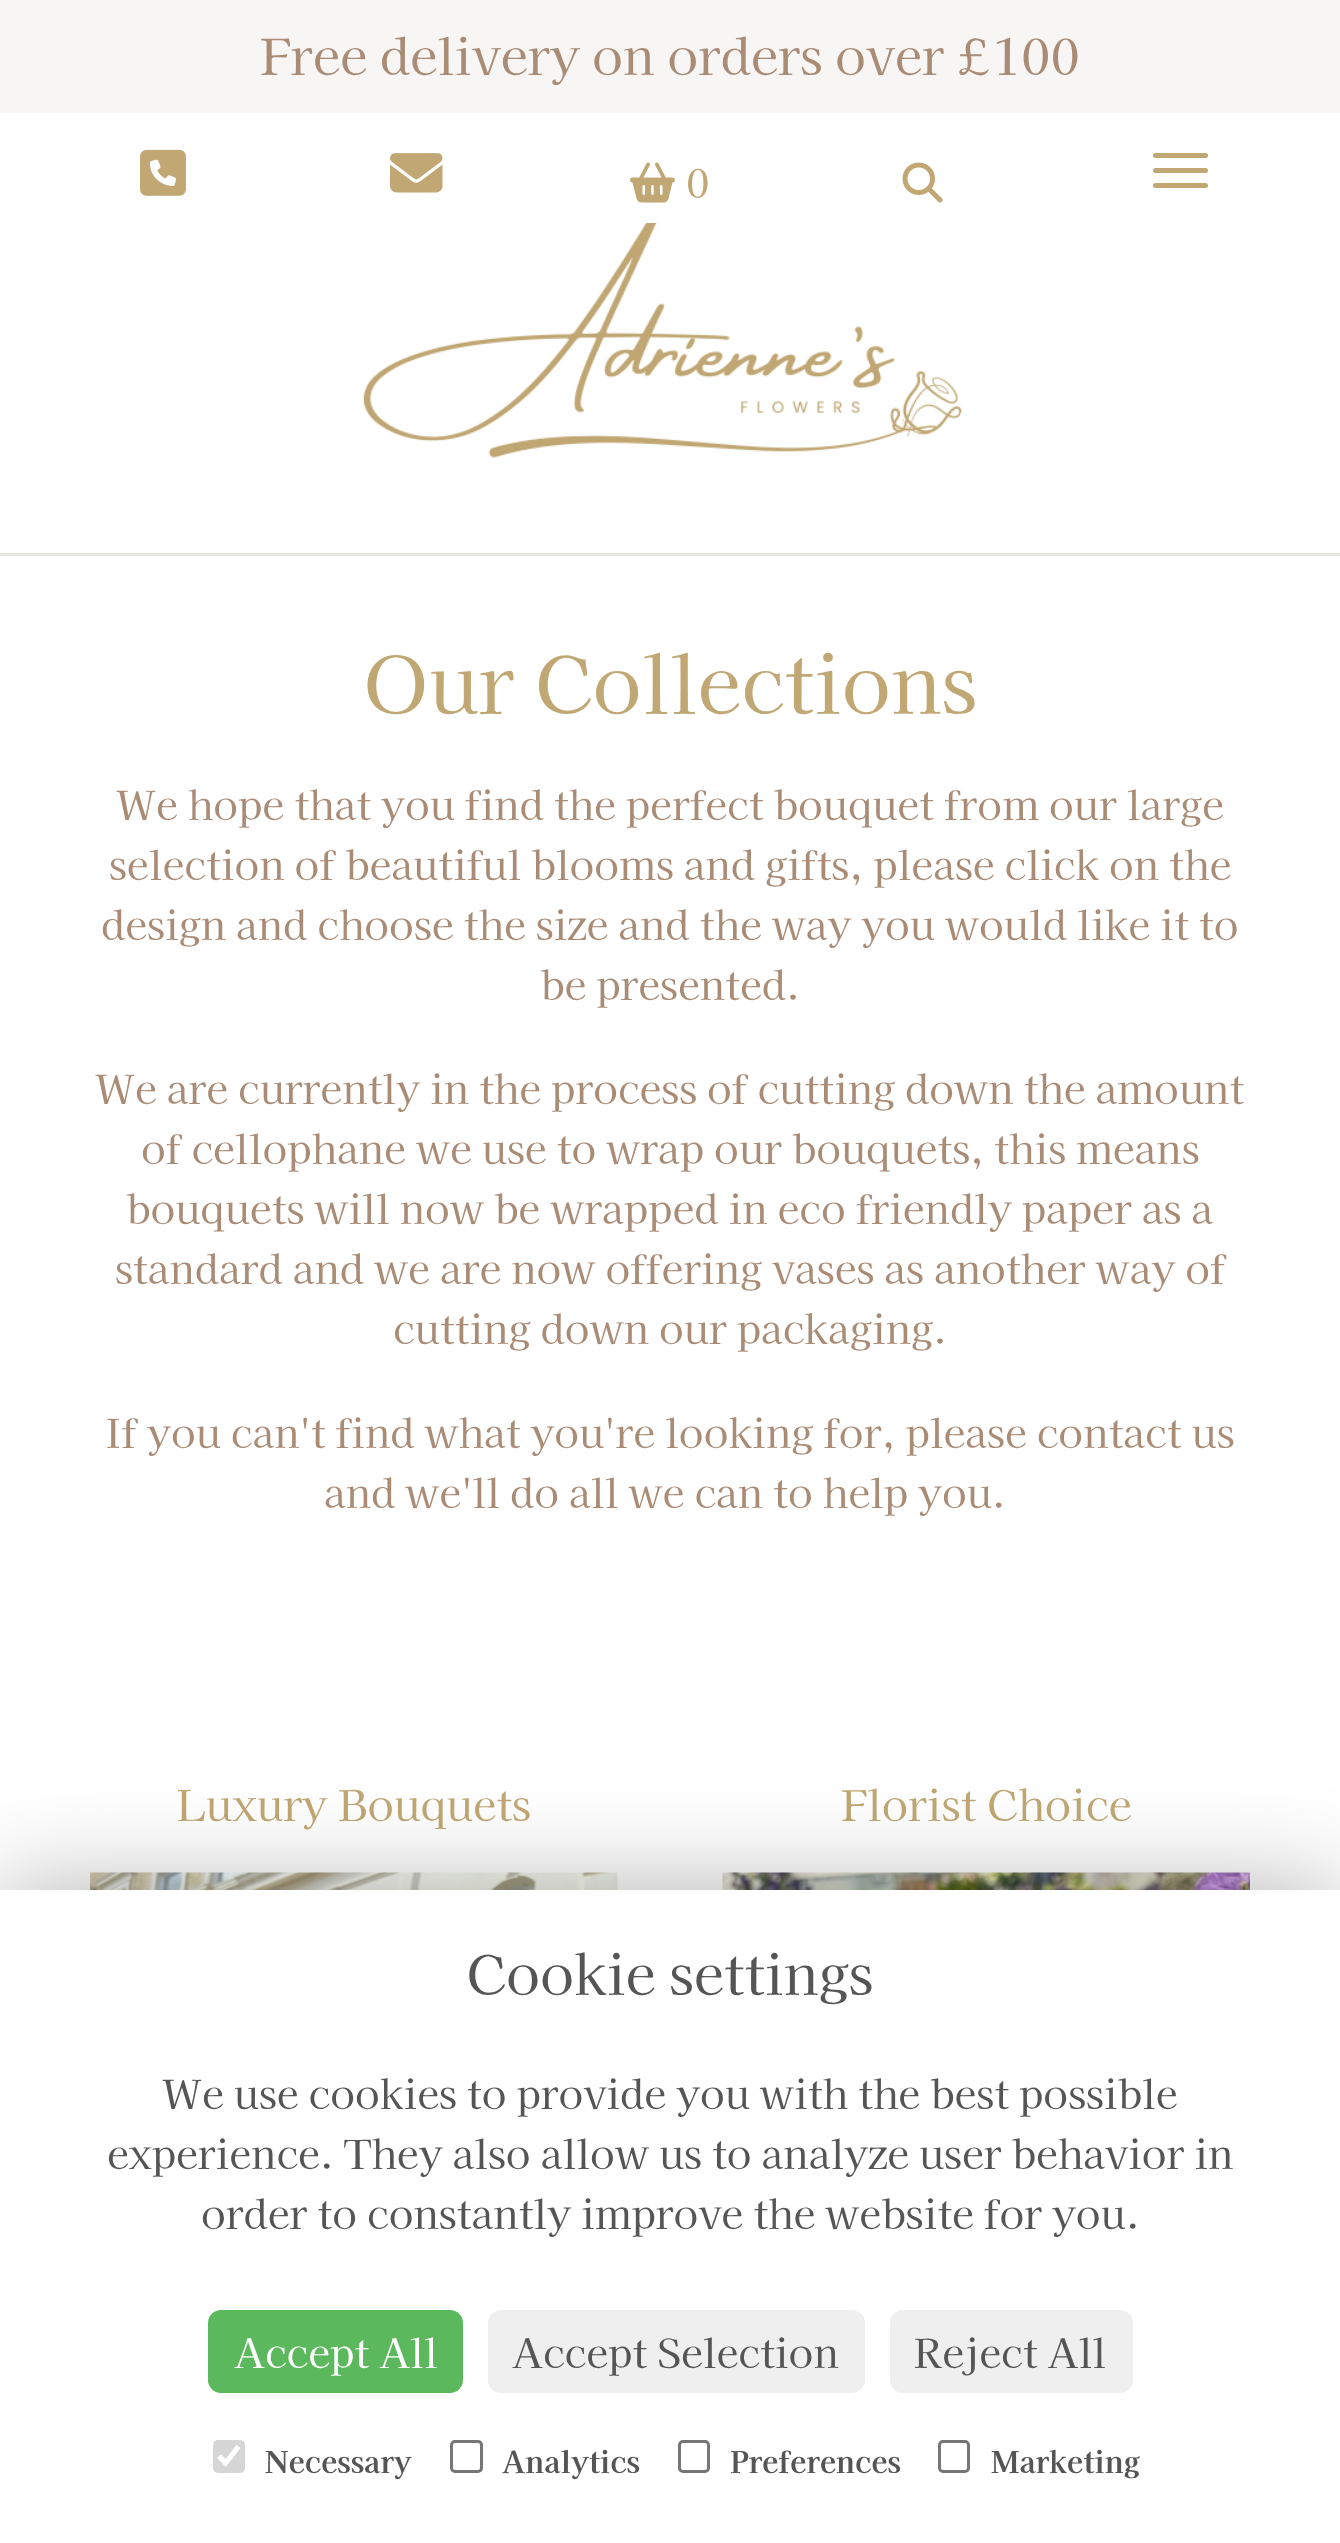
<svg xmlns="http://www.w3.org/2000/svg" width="1340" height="2543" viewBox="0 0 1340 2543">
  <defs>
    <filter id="blur1" x="-50%" y="-200%" width="200%" height="500%"><feGaussianBlur stdDeviation="50"/></filter>
  </defs>
  <rect width="100%" height="100%" fill="#ffffff"/>
  <rect x="0" y="0" width="1340" height="113" fill="#f8f6f4"/>
  <text x="260" y="75" font-family="Kaisei Tokumin" font-size="50" fill="#aa8c76">Free delivery on orders over £100</text>
  <image x="140" y="149" width="46" height="47" href="img1.png"/>
  <image x="390" y="153" width="53" height="40" href="img2.png"/>
  <image x="630" y="162" width="45" height="41" href="img3.png"/>
  <text x="686" y="198" font-family="Kaisei Tokumin" font-size="40" fill="#c0a773">0</text>
  <image x="902" y="162" width="41" height="41" href="img4.png"/>
  <rect x="1153" y="153" width="55" height="5" rx="2.5" fill="#c0a773"/>
  <rect x="1153" y="168" width="55" height="5" rx="2.5" fill="#c0a773"/>
  <rect x="1153" y="183" width="55" height="5" rx="2.5" fill="#c0a773"/>
  <rect x="0" y="553" width="1340" height="3" fill="#ebe5df"/>
  <image x="363" y="223" width="599" height="235" href="img5.png"/>
  <text x="363" y="714" font-family="Kaisei Tokumin" font-size="80" fill="#c0a773">Our Collections</text>
  <text x="116" y="820" font-family="Kaisei Tokumin" font-size="40" fill="#aa8c76">We hope that you find the perfect bouquet from our large</text>
  <text x="109" y="880" font-family="Kaisei Tokumin" font-size="40" fill="#aa8c76">selection of beautiful blooms and gifts, please click on the</text>
  <text x="101" y="940" font-family="Kaisei Tokumin" font-size="40" fill="#aa8c76">design and choose the size and the way you would like it to</text>
  <text x="540" y="1000" font-family="Kaisei Tokumin" font-size="40" fill="#aa8c76">be presented.</text>
  <text x="95" y="1104" font-family="Kaisei Tokumin" font-size="40" fill="#aa8c76">We are currently in the process of cutting down the amount</text>
  <text x="141" y="1164" font-family="Kaisei Tokumin" font-size="40" fill="#aa8c76">of cellophane we use to wrap our bouquets, this means</text>
  <text x="126" y="1224" font-family="Kaisei Tokumin" font-size="40" fill="#aa8c76">bouquets will now be wrapped in eco friendly paper as a</text>
  <text x="115" y="1284" font-family="Kaisei Tokumin" font-size="40" fill="#aa8c76">standard and we are now offering vases as another way of</text>
  <text x="393" y="1344" font-family="Kaisei Tokumin" font-size="40" fill="#aa8c76">cutting down our packaging.</text>
  <text x="105" y="1448" font-family="Kaisei Tokumin" font-size="40" fill="#aa8c76">If you can't find what you're looking for, please contact us</text>
  <text x="324" y="1508" font-family="Kaisei Tokumin" font-size="40" fill="#aa8c76">and we'll do all we can to help you.</text>
  <text x="177" y="1821" font-family="Kaisei Tokumin" font-size="42.5" fill="#c0a773">Luxury Bouquets</text>
  <image x="90" y="1872" width="528" height="18" href="img6.png"/>
  <text x="841" y="1821" font-family="Kaisei Tokumin" font-size="42.5" fill="#c0a773">Florist Choice</text>
  <image x="722" y="1872" width="528" height="18" href="img7.png"/>
  <rect x="0" y="1890" width="1340" height="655" fill="#000000" fill-opacity="0.31" filter="url(#blur1)"/>
  <rect x="0" y="1890" width="1340" height="653" fill="#ffffff"/>
  <text x="466" y="1995" font-family="Kaisei Tokumin" font-size="55" fill="#555555">Cookie settings</text>
  <text x="162" y="2109" font-family="Kaisei Tokumin" font-size="40" fill="#555555">We use cookies to provide you with the best possible</text>
  <text x="107" y="2169" font-family="Kaisei Tokumin" font-size="40" fill="#555555">experience. They also allow us to analyze user behavior in</text>
  <text x="201" y="2229" font-family="Kaisei Tokumin" font-size="40" fill="#555555">order to constantly improve the website for you.</text>
  <rect x="208" y="2310" width="255" height="83" rx="13" fill="#5cb85c"/>
  <text x="234" y="2368" font-family="Kaisei Tokumin" font-size="40" fill="#ffffff">Accept All</text>
  <rect x="488" y="2310" width="377" height="83" rx="13" fill="#efefef"/>
  <text x="512" y="2368" font-family="Kaisei Tokumin" font-size="40" fill="#555555">Accept Selection</text>
  <rect x="890" y="2310" width="243" height="83" rx="13" fill="#efefef"/>
  <text x="914" y="2368" font-family="Kaisei Tokumin" font-size="40" fill="#555555">Reject All</text>
  <rect x="213" y="2440" width="32" height="33" rx="5" fill="#d6d6d6"/>
  <path d="M219 2456L225.5 2463L238.5 2446.5" fill="none" stroke="#ffffff" stroke-width="5.2"/>
  <text x="265" y="2473" font-family="Kaisei Tokumin" font-size="30" font-weight="bold" fill="#555555">Necessary</text>
  <rect x="451.5" y="2441.5" width="30" height="30" rx="3.5" fill="none" stroke="#767676" stroke-width="3"/>
  <text x="502" y="2473" font-family="Kaisei Tokumin" font-size="30" font-weight="bold" fill="#555555">Analytics</text>
  <rect x="679.5" y="2441.5" width="29" height="30" rx="3.5" fill="none" stroke="#767676" stroke-width="3"/>
  <text x="730" y="2473" font-family="Kaisei Tokumin" font-size="30" font-weight="bold" fill="#555555">Preferences</text>
  <rect x="939.5" y="2441.5" width="29" height="30" rx="3.5" fill="none" stroke="#767676" stroke-width="3"/>
  <text x="991" y="2473" font-family="Kaisei Tokumin" font-size="30" font-weight="bold" fill="#555555">Marketing</text>
</svg>
